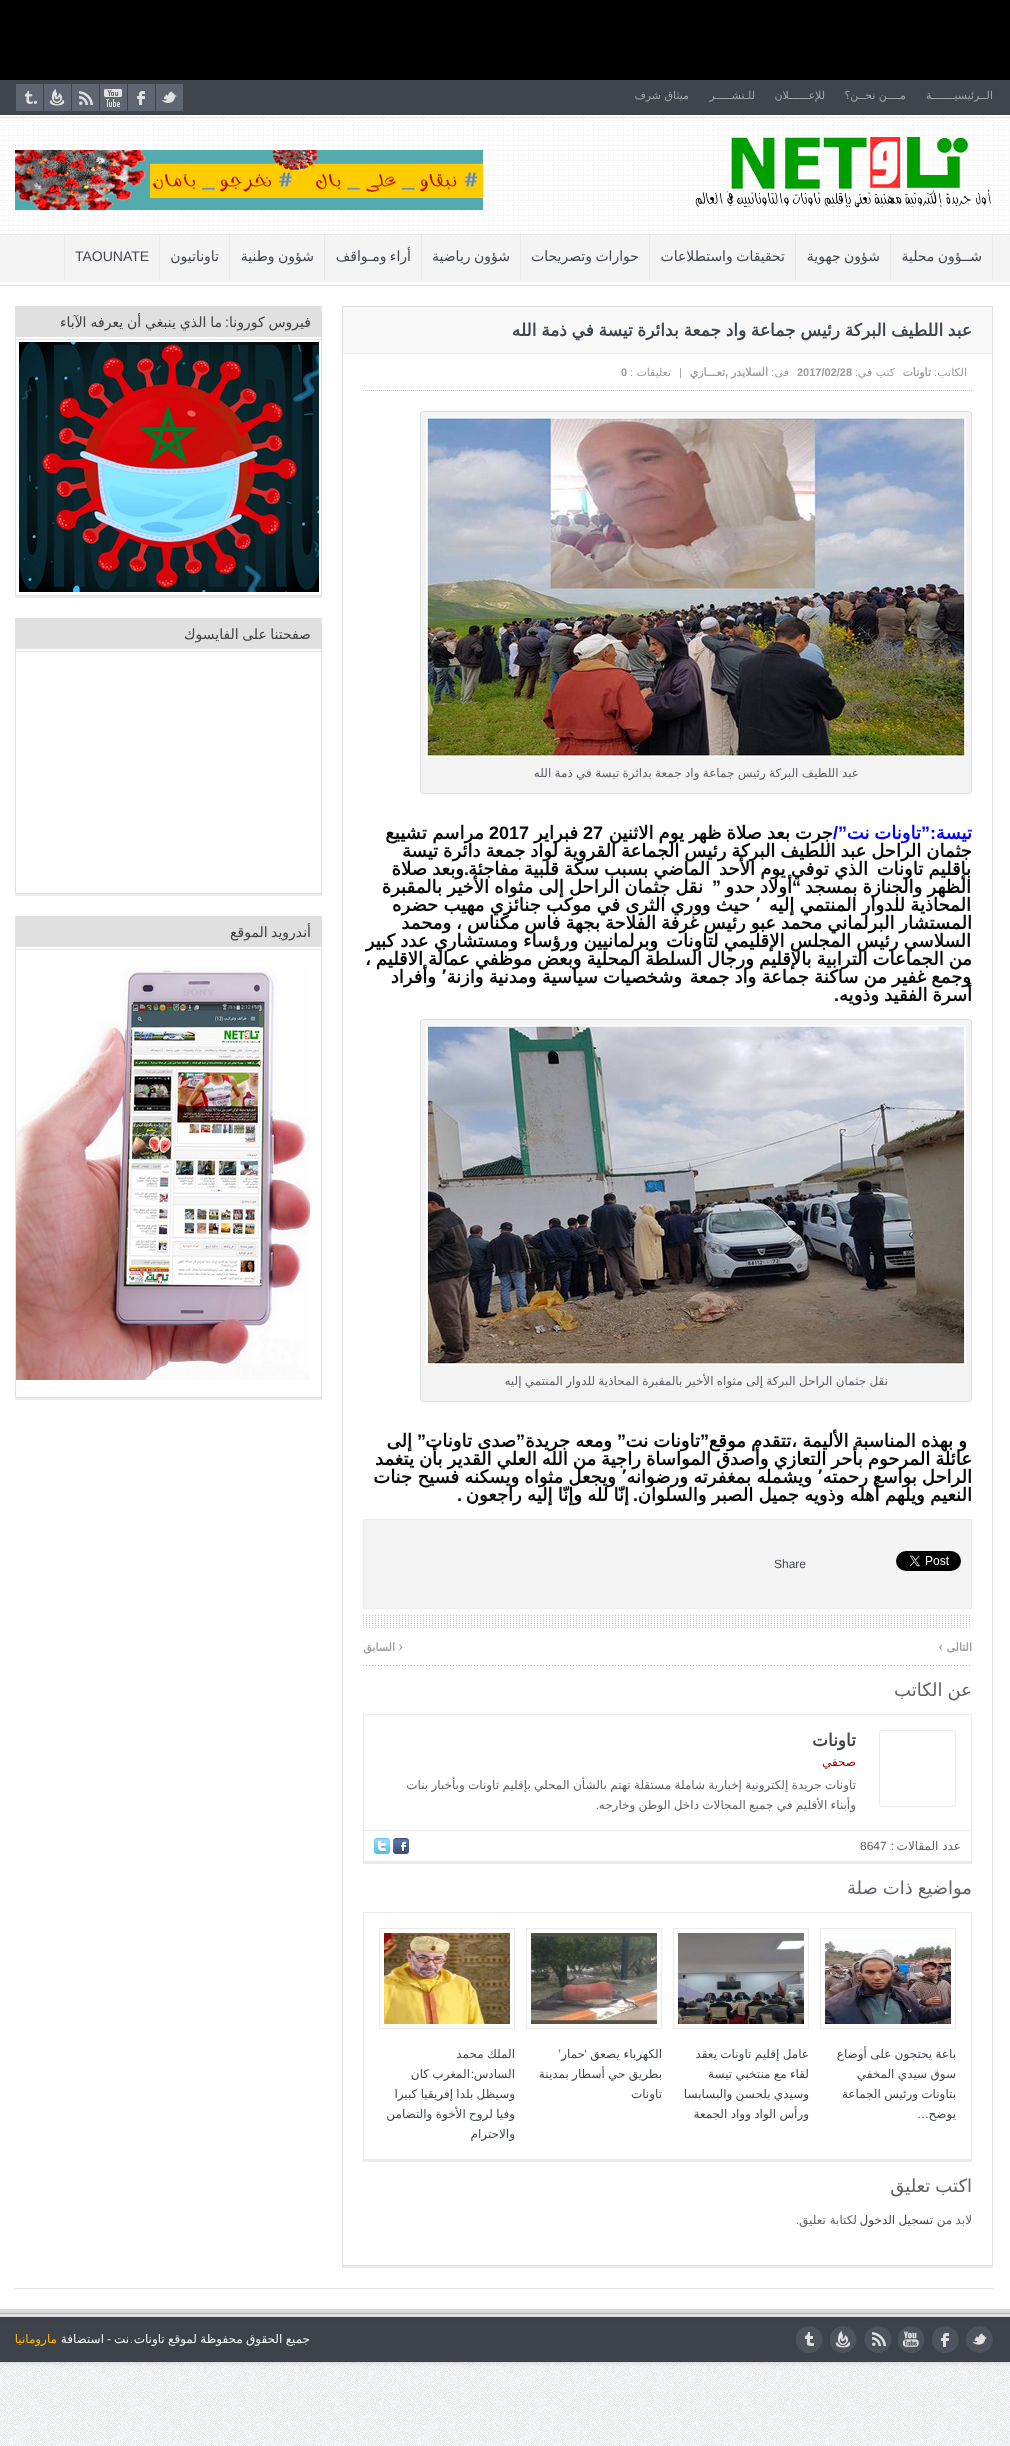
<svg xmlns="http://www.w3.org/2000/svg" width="1010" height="2446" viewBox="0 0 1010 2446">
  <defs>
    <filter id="blur1" x="-50%" y="-200%" width="200%" height="500%"><feGaussianBlur stdDeviation="2.5"/></filter>
  </defs>
  <rect width="100%" height="100%" fill="#ffffff"/>
  <image x="0" y="2362" width="1010" height="84" href="img1.png"/>
  <rect x="-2" y="0" width="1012" height="2362" fill="#000000" fill-opacity="0.2" filter="url(#blur1)"/>
  <rect x="0" y="115" width="1010" height="2194" fill="#ffffff"/>
  <rect x="0" y="0" width="1010" height="80" fill="#000000"/>
  <rect x="0" y="80" width="1010" height="35" fill="#40454d"/>
  <text x="993" y="99" font-family="DejaVu Sans" font-size="11" direction="rtl" fill="#a4a5aa">الــرئيسيـــــــة</text>
  <text x="906" y="99" font-family="DejaVu Sans" font-size="11" direction="rtl" fill="#a4a5aa">مــــن نحــن؟</text>
  <text x="825" y="99" font-family="DejaVu Sans" font-size="11" direction="rtl" fill="#a4a5aa">للإعــــــلان</text>
  <text x="755" y="99" font-family="DejaVu Sans" font-size="11" direction="rtl" fill="#a4a5aa">للـنشـــــر</text>
  <text x="689" y="99" font-family="DejaVu Sans" font-size="11" direction="rtl" fill="#a4a5aa">ميثاق شرف</text>
  <rect x="156" y="84" width="27" height="27" fill="#5f6672"/>
  <image x="161" y="91" width="16" height="12" href="img2.png"/>
  <rect x="128" y="84" width="27" height="27" fill="#5f6672"/>
  <image x="137" y="91" width="8" height="14" href="img3.png"/>
  <rect x="100" y="84" width="27" height="27" fill="#5f6672"/>
  <image x="104" y="89" width="18" height="18" href="img4.png"/>
  <rect x="72" y="84" width="27" height="27" fill="#5f6672"/>
  <image x="79" y="91" width="14" height="14" href="img5.png"/>
  <rect x="44" y="84" width="27" height="27" fill="#5f6672"/>
  <image x="49" y="88" width="16" height="18" href="img6.png"/>
  <rect x="16" y="84" width="27" height="27" fill="#5f6672"/>
  <image x="25" y="91" width="12" height="13" href="img7.png"/>
  <image x="0" y="115" width="1009" height="118" href="img8.png"/>
  <rect x="0" y="117" width="1010" height="1" fill="#e0e0e0"/>
  <image x="695" y="137" width="296" height="71" href="img9.png"/>
  <image x="15" y="150" width="468" height="60" href="img10.png"/>
  <rect x="0" y="285" width="1010" height="1" fill="#e0e0e0"/>
  <rect x="0" y="235" width="1010" height="47" fill="#f4f4f4"/>
  <rect x="0" y="234" width="1010" height="1" fill="#eaeaea"/>
  <rect x="992" y="233" width="1" height="46" fill="#eaeaea"/>
  <rect x="890" y="233" width="1" height="46" fill="#eaeaea"/>
  <text x="982" y="261" word-spacing="-1" font-family="DejaVu Sans" font-size="14" direction="rtl" fill="#40454d">شــؤون محلية</text>
  <rect x="795" y="233" width="1" height="46" fill="#eaeaea"/>
  <text x="880" y="261" word-spacing="-1" font-family="DejaVu Sans" font-size="14" direction="rtl" fill="#40454d">شؤون جهوية</text>
  <rect x="649" y="233" width="1" height="46" fill="#eaeaea"/>
  <text x="785" y="261" word-spacing="-1" font-family="DejaVu Sans" font-size="14" direction="rtl" fill="#40454d">تحقيقات واستطلاعات</text>
  <rect x="520" y="233" width="1" height="46" fill="#eaeaea"/>
  <text x="639" y="261" word-spacing="-1" font-family="DejaVu Sans" font-size="14" direction="rtl" fill="#40454d">حوارات وتصريحات</text>
  <rect x="421" y="233" width="1" height="46" fill="#eaeaea"/>
  <text x="510" y="261" word-spacing="-1" font-family="DejaVu Sans" font-size="14" direction="rtl" fill="#40454d">شؤون رياضية</text>
  <rect x="324" y="233" width="1" height="46" fill="#eaeaea"/>
  <text x="411" y="261" word-spacing="-1" font-family="DejaVu Sans" font-size="14" direction="rtl" fill="#40454d">أراء ومـواقف</text>
  <rect x="229" y="233" width="1" height="46" fill="#eaeaea"/>
  <text x="314" y="261" word-spacing="-1" font-family="DejaVu Sans" font-size="14" direction="rtl" fill="#40454d">شؤون وطنية</text>
  <rect x="159" y="233" width="1" height="46" fill="#eaeaea"/>
  <text x="219" y="261" font-family="DejaVu Sans" font-size="14" direction="rtl" fill="#40454d">تاوناتيون</text>
  <rect x="64" y="233" width="1" height="46" fill="#eaeaea"/>
  <text x="75" y="261" font-family="Liberation Sans" font-size="14" fill="#40454d">TAOUNATE</text>
  <rect x="15" y="2288" width="978" height="1" fill="#e0e0e0"/>
  <rect x="342" y="2266" width="651" height="2" fill="#ebebeb"/>
  <rect x="342.5" y="306.5" width="650" height="1959" fill="none" stroke="#e0e0e0"/>
  <rect x="343" y="307" width="649" height="46" fill="#f8f8f8"/>
  <rect x="343" y="353" width="649" height="1" fill="#ebebeb"/>
  <text x="972" y="336" word-spacing="-0.75" font-family="DejaVu Sans" font-size="17" font-weight="bold" direction="rtl" fill="#40454d">عبد اللطيف البركة رئيس جماعة واد جمعة بدائرة تيسة في ذمة الله</text>
  <path d="M363 390.5H972" fill="none" stroke="#c3c3c3" stroke-dasharray="1 1"/>
  <text x="967" y="376" font-family="DejaVu Sans" font-size="11" direction="rtl" fill="#9b9ca0">الكاتب</text>
  <text x="937" y="376" font-family="Liberation Sans" font-size="11" direction="rtl" fill="#9b9ca0">:</text>
  <text x="931" y="376" font-family="DejaVu Sans" font-size="11" font-weight="bold" direction="rtl" fill="#9b9ca0">تاونات</text>
  <text x="895" y="376" font-family="DejaVu Sans" font-size="11" direction="rtl" fill="#9b9ca0">كتب في</text>
  <text x="858" y="376" font-family="Liberation Sans" font-size="11" direction="rtl" fill="#9b9ca0">:</text>
  <text x="797" y="376" font-family="Liberation Sans" font-size="11" font-weight="bold" fill="#9b9ca0">2017/02/28</text>
  <text x="789" y="376" font-family="DejaVu Sans" font-size="11" direction="rtl" fill="#9b9ca0">فى</text>
  <text x="774" y="376" font-family="Liberation Sans" font-size="11" direction="rtl" fill="#9b9ca0">:</text>
  <text x="768" y="376" font-family="DejaVu Sans" font-size="11" font-weight="bold" direction="rtl" fill="#9b9ca0">السلايدر</text>
  <text x="725" y="376" font-family="Liberation Sans" font-size="11" font-weight="bold" fill="#9b9ca0">,</text>
  <text x="725" y="376" font-family="DejaVu Sans" font-size="11" font-weight="bold" direction="rtl" fill="#9b9ca0">تعـــازي</text>
  <text x="679" y="376" font-family="Liberation Sans" font-size="11" fill="#9b9ca0">|</text>
  <text x="671" y="376" font-family="DejaVu Sans" font-size="11" direction="rtl" fill="#9b9ca0">تعليقات</text>
  <text x="633" y="376" font-family="Liberation Sans" font-size="11" direction="rtl" fill="#9b9ca0">:</text>
  <text x="621" y="376" font-family="Liberation Sans" font-size="11" font-weight="bold" fill="#9b9ca0">0</text>
  <rect x="420.5" y="411.5" width="551" height="382" rx="2.5" fill="#f3f3f3" stroke="#dddddd"/>
  <image x="426" y="417" width="540" height="340" href="img11.png"/>
  <text x="859" y="777" word-spacing="-0.5" font-family="DejaVu Sans" font-size="12" direction="rtl" fill="#5e6066">عبد اللطيف البركة رئيس جماعة واد جمعة بدائرة تيسة في ذمة الله</text>
  <text x="972" y="839" font-family="DejaVu Sans" font-size="18" font-weight="bold" direction="rtl" fill="#0000ff">تيسة</text>
  <text x="936" y="839" font-family="Liberation Sans" font-size="18" font-weight="bold" direction="rtl" fill="#0000ff">:”</text>
  <text x="921" y="839" word-spacing="-0.75" font-family="DejaVu Sans" font-size="18" font-weight="bold" direction="rtl" fill="#0000ff">تاونات نت</text>
  <text x="847" y="839" font-family="Liberation Sans" font-size="18" font-weight="bold" direction="rtl" fill="#0000ff">”/</text>
  <text x="833" y="839" word-spacing="-0.75" font-family="DejaVu Sans" font-size="18" font-weight="bold" direction="rtl" fill="#080606">جرت بعد صلاة ظهر يوم الاثنين</text>
  <text x="583" y="839" font-family="Liberation Sans" font-size="18" font-weight="bold" fill="#080606">27</text>
  <text x="578" y="839" font-family="DejaVu Sans" font-size="18" font-weight="bold" direction="rtl" fill="#080606">فبراير</text>
  <text x="489" y="839" font-family="Liberation Sans" font-size="18" font-weight="bold" fill="#080606">2017</text>
  <text x="484" y="839" font-family="DejaVu Sans" font-size="18" font-weight="bold" direction="rtl" fill="#080606">مراسم تشييع</text>
  <text x="972" y="857" word-spacing="-0.75" font-family="DejaVu Sans" font-size="18" font-weight="bold" direction="rtl" fill="#080606">جثمان الراحل عبد اللطيف البركة رئيس الجماعة القروية لواد جمعة دائرة تيسة</text>
  <text x="971" y="875" word-spacing="-0.5" font-family="DejaVu Sans" font-size="18" font-weight="bold" direction="rtl" fill="#080606">بإقليم تاونات</text>
  <text x="868" y="875" word-spacing="-0.5" font-family="DejaVu Sans" font-size="18" font-weight="bold" direction="rtl" fill="#080606">الذي توفي يوم الأحد</text>
  <text x="710" y="875" word-spacing="-0.5" font-family="DejaVu Sans" font-size="18" font-weight="bold" direction="rtl" fill="#080606">الماضي بسبب سكة قلبية مفاجئة</text>
  <text x="469" y="875" font-family="Liberation Sans" font-size="18" font-weight="bold" direction="rtl" fill="#080606">.</text>
  <text x="464" y="875" word-spacing="-0.5" font-family="DejaVu Sans" font-size="18" font-weight="bold" direction="rtl" fill="#080606">وبعد صلاة</text>
  <text x="971" y="893" word-spacing="-0.5" font-family="DejaVu Sans" font-size="18" font-weight="bold" direction="rtl" fill="#080606">الظهر والجنازة بمسجد</text>
  <text x="801" y="893" font-family="Liberation Sans" font-size="18" font-weight="bold" direction="rtl" fill="#080606">“</text>
  <text x="792" y="893" word-spacing="-0.5" font-family="DejaVu Sans" font-size="18" font-weight="bold" direction="rtl" fill="#080606">أولاد حدو</text>
  <text x="721" y="893" font-family="Liberation Sans" font-size="18" font-weight="bold" direction="rtl" fill="#080606">”</text>
  <text x="703" y="893" word-spacing="-0.5" font-family="DejaVu Sans" font-size="18" font-weight="bold" direction="rtl" fill="#080606">نقل جثمان الراحل إلى مثواه الأخير بالمقبرة</text>
  <text x="971" y="911" word-spacing="-0.5" font-family="DejaVu Sans" font-size="18" font-weight="bold" direction="rtl" fill="#080606">المحاذية للدوار المنتمي إليه</text>
  <text x="755" y="911" font-family="DejaVu Sans" font-size="18" font-weight="bold" fill="#080606">٬</text>
  <text x="750" y="911" word-spacing="-0.5" font-family="DejaVu Sans" font-size="18" font-weight="bold" direction="rtl" fill="#080606">حيث ووري الثرى في موكب جنائزي مهيب حضره</text>
  <text x="972" y="929" word-spacing="-0.75" font-family="DejaVu Sans" font-size="18" font-weight="bold" direction="rtl" fill="#080606">المستشار البرلماني محمد عبو رئيس غرفة الفلاحة بجهة فاس مكناس ، ومحمد</text>
  <text x="971" y="947" word-spacing="-0.5" font-family="DejaVu Sans" font-size="18" font-weight="bold" direction="rtl" fill="#080606">السلاسي رئيس المجلس الإقليمي لتاونات</text>
  <text x="658" y="947" word-spacing="-0.5" font-family="DejaVu Sans" font-size="18" font-weight="bold" direction="rtl" fill="#080606">وبرلمانيين ورؤساء ومستشاري عدد كبير</text>
  <text x="972" y="965" word-spacing="-0.75" font-family="DejaVu Sans" font-size="18" font-weight="bold" direction="rtl" fill="#080606">من الجماعات الترابية بالإقليم ورجال السلطة المحلية وبعض موظفي عمالة الاقليم ،</text>
  <text x="971" y="983" word-spacing="-0.5" font-family="DejaVu Sans" font-size="18" font-weight="bold" direction="rtl" fill="#080606">وجمع غفير من ساكنة جماعة واد جمعة</text>
  <text x="682" y="983" word-spacing="-0.5" font-family="DejaVu Sans" font-size="18" font-weight="bold" direction="rtl" fill="#080606">وشخصيات سياسية ومدنية وازنة</text>
  <text x="441" y="983" font-family="DejaVu Sans" font-size="18" font-weight="bold" fill="#080606">٬</text>
  <text x="436" y="983" font-family="DejaVu Sans" font-size="18" font-weight="bold" direction="rtl" fill="#080606">وأفراد</text>
  <text x="972" y="1001" word-spacing="-0.75" font-family="DejaVu Sans" font-size="18" font-weight="bold" direction="rtl" fill="#080606">أسرة الفقيد وذويه</text>
  <text x="839" y="1001" font-family="Liberation Sans" font-size="18" font-weight="bold" direction="rtl" fill="#080606">.</text>
  <rect x="420.5" y="1019.5" width="551" height="382" rx="2.5" fill="#f3f3f3" stroke="#dddddd"/>
  <image x="426" y="1025" width="540" height="340" href="img12.png"/>
  <text x="888" y="1385" word-spacing="-0.5" font-family="DejaVu Sans" font-size="12" direction="rtl" fill="#5e6066">نقل جثمان الراحل البركة إلى مثواه الأخير بالمقبرة المحاذية للدوار المنتمي إليه</text>
  <text x="967" y="1447" word-spacing="-0.5" font-family="DejaVu Sans" font-size="18" font-weight="bold" direction="rtl" fill="#080606">و بهذه المناسبة الأليمة ،تتقدم موقع</text>
  <text x="709" y="1447" font-family="Liberation Sans" font-size="18" font-weight="bold" direction="rtl" fill="#080606">”</text>
  <text x="700" y="1447" word-spacing="-0.5" font-family="DejaVu Sans" font-size="18" font-weight="bold" direction="rtl" fill="#080606">تاونات نت</text>
  <text x="626" y="1447" font-family="Liberation Sans" font-size="18" font-weight="bold" direction="rtl" fill="#080606">”</text>
  <text x="612" y="1447" word-spacing="-0.5" font-family="DejaVu Sans" font-size="18" font-weight="bold" direction="rtl" fill="#080606">ومعه جريدة</text>
  <text x="525" y="1447" font-family="Liberation Sans" font-size="18" font-weight="bold" direction="rtl" fill="#080606">”</text>
  <text x="516" y="1447" word-spacing="-0.5" font-family="DejaVu Sans" font-size="18" font-weight="bold" direction="rtl" fill="#080606">صدى تاونات</text>
  <text x="426" y="1447" font-family="Liberation Sans" font-size="18" font-weight="bold" direction="rtl" fill="#080606">”</text>
  <text x="412" y="1447" font-family="DejaVu Sans" font-size="18" font-weight="bold" direction="rtl" fill="#080606">إلى</text>
  <text x="972" y="1465" word-spacing="-0.75" font-family="DejaVu Sans" font-size="18" font-weight="bold" direction="rtl" fill="#080606">عائلة المرحوم بأحر التعازي وأصدق المواساة راجية من الله العلي القدير بأن يتغمد</text>
  <text x="972" y="1483" word-spacing="-0.75" font-family="DejaVu Sans" font-size="18" font-weight="bold" direction="rtl" fill="#080606">الراحل بواسع رحمته</text>
  <text x="817" y="1483" font-family="DejaVu Sans" font-size="18" font-weight="bold" fill="#080606">٬</text>
  <text x="812" y="1483" word-spacing="-0.5" font-family="DejaVu Sans" font-size="18" font-weight="bold" direction="rtl" fill="#080606">ويشمله بمغفرته ورضوانه</text>
  <text x="621" y="1483" font-family="DejaVu Sans" font-size="18" font-weight="bold" fill="#080606">٬</text>
  <text x="616" y="1483" word-spacing="-0.5" font-family="DejaVu Sans" font-size="18" font-weight="bold" direction="rtl" fill="#080606">ويجعل مثواه ويسكنه فسيح جنات</text>
  <text x="972" y="1501" word-spacing="-0.5" font-family="DejaVu Sans" font-size="18" font-weight="bold" direction="rtl" fill="#080606">النعيم ويلهم أهله وذويه جميل الصبر والسلوان</text>
  <text x="638" y="1501" font-family="Liberation Sans" font-size="18" font-weight="bold" direction="rtl" fill="#080606">.</text>
  <text x="629" y="1501" word-spacing="-0.5" font-family="DejaVu Sans" font-size="18" font-weight="bold" direction="rtl" fill="#080606">إنّا لله وإنّا إليه راجعون</text>
  <text x="462" y="1501" font-family="Liberation Sans" font-size="18" font-weight="bold" direction="rtl" fill="#080606">.</text>
  <rect x="363.5" y="1519.5" width="608" height="89" fill="#f4f4f4" stroke="#ebebeb"/>
  <image x="896" y="1551" width="65" height="20" href="img13.png"/>
  <text x="774" y="1568" font-family="Liberation Sans" font-size="12" fill="#40454d">Share</text>
  <image x="363" y="1615" width="607" height="13" href="img14.png"/>
  <image x="363" y="1665" width="607" height="1" href="img15.png"/>
  <text x="972" y="1651" font-family="DejaVu Sans" font-size="11" font-weight="bold" direction="rtl" fill="#9b9ca0">التالى</text>
  <text x="938" y="1651" font-family="Liberation Serif" font-size="16" fill="#9b9ca0">‹</text>
  <text x="398" y="1651" font-family="Liberation Serif" font-size="16" fill="#9b9ca0">›</text>
  <text x="395" y="1651" font-family="DejaVu Sans" font-size="11" font-weight="bold" direction="rtl" fill="#9b9ca0">السابق</text>
  <text x="972" y="1696" word-spacing="-0.75" font-family="DejaVu Sans" font-size="18" direction="rtl" fill="#5e6066">عن الكاتب</text>
  <rect x="363" y="1714" width="609" height="1" fill="#ebebeb"/>
  <rect x="971" y="1714" width="1" height="150" fill="#ebebeb"/>
  <rect x="363" y="1861" width="609" height="3" fill="#ebebeb"/>
  <rect x="363" y="1714" width="1" height="150" fill="#ebebeb"/>
  <rect x="879.5" y="1730.5" width="76" height="76" rx="2.5" fill="none" stroke="#eaeaea"/>
  <text x="856" y="1746" font-family="DejaVu Sans" font-size="17" font-weight="bold" direction="rtl" fill="#40454d">تاونات</text>
  <text x="856" y="1766" font-family="DejaVu Sans" font-size="12" direction="rtl" fill="#a50000">صحفي</text>
  <text x="856" y="1789" word-spacing="-0.5" font-family="DejaVu Sans" font-size="12" direction="rtl" fill="#5e6066">تاونات جريدة إلكترونية إخبارية شاملة مستقلة تهتم بالشأن المحلي بإقليم تاونات وبأخبار بنات</text>
  <text x="856" y="1809" word-spacing="-0.5" font-family="DejaVu Sans" font-size="12" direction="rtl" fill="#5e6066">وأبناء الأقليم في جميع المجالات داخل الوطن وخارجه</text>
  <text x="599" y="1809" font-family="Liberation Sans" font-size="12" direction="rtl" fill="#5e6066">.</text>
  <rect x="364" y="1830" width="607" height="1" fill="#ebebeb"/>
  <text x="961" y="1850" font-family="DejaVu Sans" font-size="12" direction="rtl" fill="#5e6066">عدد المقالات</text>
  <text x="894" y="1850" font-family="Liberation Sans" font-size="12" direction="rtl" fill="#5e6066">:</text>
  <text x="860" y="1850" font-family="Liberation Sans" font-size="12" fill="#5e6066">8647</text>
  <image x="393" y="1838" width="16" height="16" href="img16.png"/>
  <image x="374" y="1838" width="16" height="16" href="img17.png"/>
  <text x="972" y="1894" word-spacing="-0.75" font-family="DejaVu Sans" font-size="18" direction="rtl" fill="#5e6066">مواضيع ذات صلة</text>
  <rect x="363" y="1912" width="609" height="1" fill="#ebebeb"/>
  <rect x="971" y="1912" width="1" height="250" fill="#ebebeb"/>
  <rect x="363" y="2159" width="609" height="3" fill="#ebebeb"/>
  <rect x="363" y="1912" width="1" height="250" fill="#ebebeb"/>
  <rect x="820.5" y="1928.5" width="135" height="100" fill="none" stroke="#eaeaea"/>
  <image x="825" y="1938" width="126" height="86" href="img18.png"/>
  <text x="956" y="2058" word-spacing="-0.5" font-family="DejaVu Sans" font-size="12" direction="rtl" fill="#40454d">باعة يحتجون على أوضاع</text>
  <text x="956" y="2078" word-spacing="-0.5" font-family="DejaVu Sans" font-size="12" direction="rtl" fill="#40454d">سوق سيدي المخفي</text>
  <text x="956" y="2098" word-spacing="-0.5" font-family="DejaVu Sans" font-size="12" direction="rtl" fill="#40454d">بتاونات ورئيس الجماعة</text>
  <text x="956" y="2118" font-family="DejaVu Sans" font-size="12" direction="rtl" fill="#40454d">يوضح</text>
  <text x="917" y="2118" font-family="Liberation Sans" font-size="12" fill="#40454d">…</text>
  <rect x="673.5" y="1928.5" width="135" height="100" fill="none" stroke="#eaeaea"/>
  <image x="678" y="1933" width="126" height="91" href="img19.png"/>
  <text x="809" y="2058" word-spacing="-0.5" font-family="DejaVu Sans" font-size="12" direction="rtl" fill="#40454d">عامل إقليم تاونات يعقد</text>
  <text x="809" y="2078" word-spacing="-0.5" font-family="DejaVu Sans" font-size="12" direction="rtl" fill="#40454d">لقاء مع منتخبي تيسة</text>
  <text x="809" y="2098" word-spacing="-0.5" font-family="DejaVu Sans" font-size="12" direction="rtl" fill="#40454d">وسيدي بلحسن والبسابسا</text>
  <text x="809" y="2118" word-spacing="-0.5" font-family="DejaVu Sans" font-size="12" direction="rtl" fill="#40454d">ورأس الواد وواد الجمعة</text>
  <rect x="526.5" y="1928.5" width="135" height="100" fill="none" stroke="#eaeaea"/>
  <image x="531" y="1933" width="126" height="91" href="img20.png"/>
  <text x="662" y="2058" font-family="DejaVu Sans" font-size="12" direction="rtl" fill="#40454d">الكهرباء يصعق</text>
  <text x="561" y="2058" font-family="Liberation Sans" font-size="12" direction="rtl" fill="#40454d">’</text>
  <text x="585" y="2058" font-family="DejaVu Sans" font-size="12" direction="rtl" fill="#40454d">حمار</text>
  <text x="587" y="2058" font-family="Liberation Sans" font-size="12" direction="rtl" fill="#40454d">‘</text>
  <text x="662" y="2078" word-spacing="-0.5" font-family="DejaVu Sans" font-size="12" direction="rtl" fill="#40454d">بطريق حي أسطار بمدينة</text>
  <text x="662" y="2098" font-family="DejaVu Sans" font-size="12" direction="rtl" fill="#40454d">تاونات</text>
  <rect x="379.5" y="1928.5" width="135" height="100" fill="none" stroke="#eaeaea"/>
  <image x="384" y="1933" width="126" height="91" href="img21.png"/>
  <text x="515" y="2058" word-spacing="-0.5" font-family="DejaVu Sans" font-size="12" direction="rtl" fill="#40454d">الملك محمد</text>
  <text x="515" y="2078" font-family="DejaVu Sans" font-size="12" direction="rtl" fill="#40454d">السادس</text>
  <text x="474" y="2078" font-family="Liberation Sans" font-size="12" direction="rtl" fill="#40454d">:</text>
  <text x="470" y="2078" word-spacing="-0.5" font-family="DejaVu Sans" font-size="12" direction="rtl" fill="#40454d">المغرب كان</text>
  <text x="515" y="2098" word-spacing="-0.5" font-family="DejaVu Sans" font-size="12" direction="rtl" fill="#40454d">وسيظل بلدا إفريقيا كبيرا</text>
  <text x="515" y="2118" word-spacing="-0.5" font-family="DejaVu Sans" font-size="12" direction="rtl" fill="#40454d">وفيا لروح الأخوة والتضامن</text>
  <text x="515" y="2138" font-family="DejaVu Sans" font-size="12" direction="rtl" fill="#40454d">والاحترام</text>
  <text x="972" y="2192" word-spacing="-0.75" font-family="DejaVu Sans" font-size="18" direction="rtl" fill="#5e6066">اكتب تعليق</text>
  <text x="972" y="2224" word-spacing="-0.5" font-family="DejaVu Sans" font-size="12" direction="rtl" fill="#5e6066">لابد من</text>
  <text x="933" y="2224" word-spacing="-0.5" font-family="DejaVu Sans" font-size="12" direction="rtl" fill="#40454d">تسجيل الدخول</text>
  <text x="857" y="2224" font-family="DejaVu Sans" font-size="12" direction="rtl" fill="#5e6066">لكتابة تعليق</text>
  <text x="799" y="2224" font-family="Liberation Sans" font-size="12" direction="rtl" fill="#5e6066">.</text>
  <rect x="15" y="596" width="307" height="2" fill="#ebebeb"/>
  <rect x="15.5" y="306.5" width="306" height="289" fill="none" stroke="#e0e0e0"/>
  <rect x="16" y="307" width="305" height="30" fill="#e0e0e0"/>
  <text x="311" y="327" word-spacing="-0.5" font-family="DejaVu Sans" font-size="14" direction="rtl" fill="#404040">فيروس كورونا</text>
  <text x="229" y="327" font-family="Liberation Sans" font-size="14" direction="rtl" fill="#404040">:</text>
  <text x="222" y="327" word-spacing="-0.5" font-family="DejaVu Sans" font-size="14" direction="rtl" fill="#404040">ما الذي ينبغي أن يعرفه الآباء</text>
  <rect x="16" y="339" width="305" height="1" fill="#e6e6e6"/>
  <image x="19" y="342" width="300" height="250" href="img22.png"/>
  <rect x="15" y="894" width="307" height="2" fill="#ebebeb"/>
  <rect x="15.5" y="618.5" width="306" height="275" fill="none" stroke="#e0e0e0"/>
  <rect x="16" y="619" width="305" height="30" fill="#e0e0e0"/>
  <text x="311" y="639" word-spacing="-1" font-family="DejaVu Sans" font-size="14" direction="rtl" fill="#404040">صفحتنا على الفايسوك</text>
  <rect x="16" y="651" width="305" height="1" fill="#e6e6e6"/>
  <rect x="15" y="1398" width="307" height="2" fill="#ebebeb"/>
  <rect x="15.5" y="916.5" width="306" height="481" fill="none" stroke="#e0e0e0"/>
  <rect x="16" y="917" width="305" height="30" fill="#e0e0e0"/>
  <text x="311" y="937" word-spacing="-1" font-family="DejaVu Sans" font-size="14" direction="rtl" fill="#404040">أندرويد الموقع</text>
  <rect x="16" y="949" width="305" height="1" fill="#e6e6e6"/>
  <image x="16" y="967" width="294" height="413" href="img23.png"/>
  <rect x="0" y="2314" width="1010" height="2" fill="#e0e0e0"/>
  <rect x="0" y="2309" width="1010" height="4" fill="#d9d9d9"/>
  <rect x="0" y="2316" width="1010" height="1" fill="#d9d9d9"/>
  <rect x="0" y="2313" width="1010" height="1" fill="#abafba"/>
  <rect x="0" y="2321" width="1010" height="41" fill="#3e424b"/>
  <rect x="0" y="2317" width="1010" height="4" fill="#3c4048"/>
  <image x="966" y="2326" width="27" height="27" href="img24.png"/>
  <image x="932" y="2326" width="27" height="27" href="img25.png"/>
  <image x="898" y="2326" width="27" height="27" href="img26.png"/>
  <image x="864" y="2326" width="27" height="27" href="img27.png"/>
  <image x="830" y="2326" width="27" height="27" href="img28.png"/>
  <image x="796" y="2326" width="27" height="27" href="img29.png"/>
  <text x="310" y="2343" word-spacing="-0.5" font-family="DejaVu Sans" font-size="12" direction="rtl" fill="#f6f6f6">جميع الحقوق محفوظة لموقع تاونات</text>
  <text x="129" y="2343" font-family="DejaVu Sans" font-size="12" direction="rtl" fill="#f6f6f6">نت</text>
  <text x="111" y="2343" font-family="Liberation Sans" font-size="12" direction="rtl" fill="#f6f6f6">-</text>
  <text x="104" y="2343" font-family="DejaVu Sans" font-size="12" direction="rtl" fill="#f6f6f6">استضافة</text>
  <text x="57" y="2343" font-family="DejaVu Sans" font-size="12" direction="rtl" fill="#ffbb00">مارومانيا</text>
  <text x="133" y="2343" font-family="Liberation Sans" font-size="12" direction="rtl" fill="#f6f6f6">.</text>
</svg>
